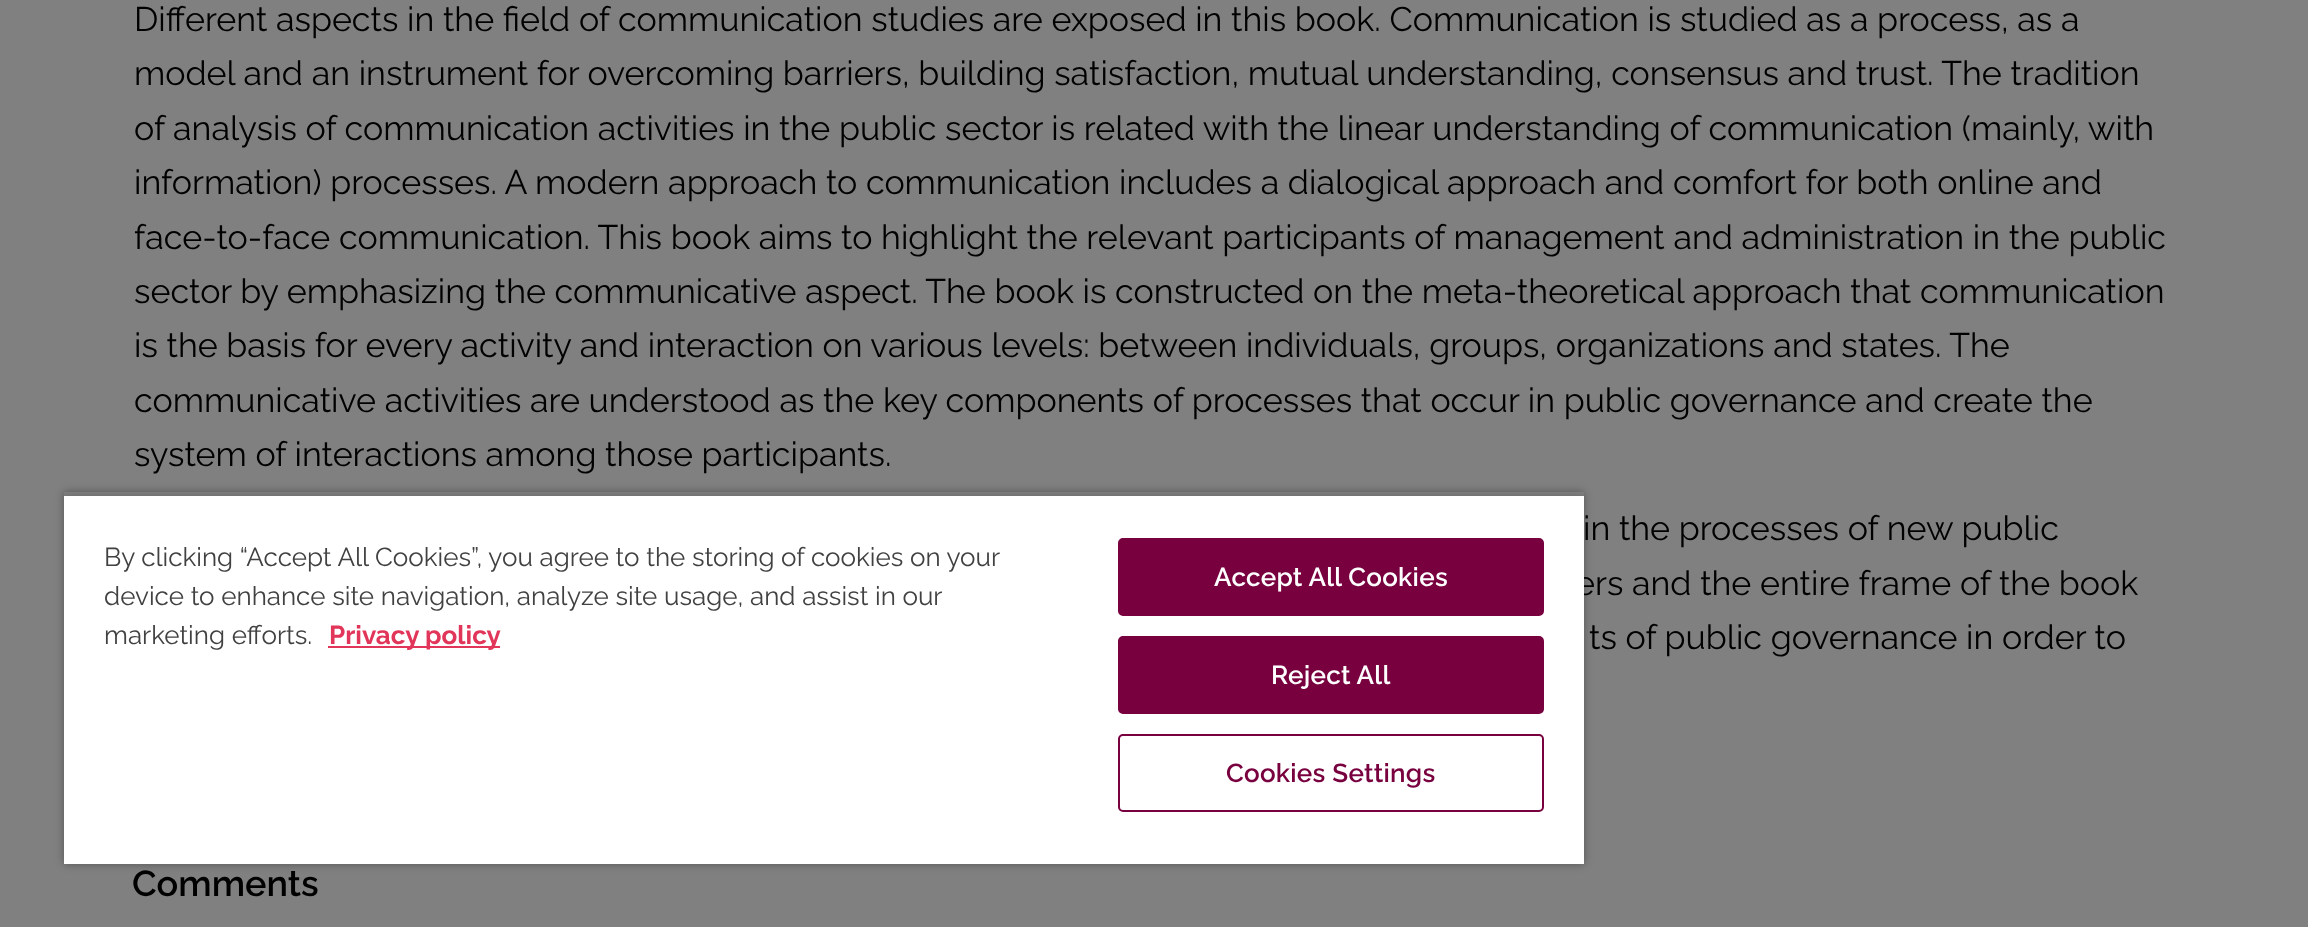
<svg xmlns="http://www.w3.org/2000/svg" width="2308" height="927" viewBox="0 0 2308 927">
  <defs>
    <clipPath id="clip1"><path d="M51 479H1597V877H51ZM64 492H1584V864H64Z" clip-rule="evenodd"/></clipPath>
    <filter id="blur1" x="-50%" y="-200%" width="200%" height="500%"><feGaussianBlur stdDeviation="4"/></filter>
    <clipPath id="clip2"><rect x="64" y="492" width="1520" height="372"/></clipPath>
  </defs>
  <rect width="100%" height="100%" fill="#808080"/>
  <text x="134" y="31" font-family="Raleway" font-size="34" fill="#000000">Different aspects in the field of communication studies are exposed in this book. Communication is studied as a process, as a</text>
  <text x="134" y="85" font-family="Raleway" font-size="34" fill="#000000">model and an instrument for overcoming barriers, building satisfaction, mutual understanding, consensus and trust. The tradition</text>
  <text x="134" y="140" font-family="Raleway" font-size="34" fill="#000000">of analysis of communication activities in the public sector is related with the linear understanding of communication (mainly, with</text>
  <text x="134" y="194" font-family="Raleway" font-size="34" fill="#000000">information) processes. A modern approach to communication includes a dialogical approach and comfort for both online and</text>
  <text x="134" y="249" font-family="Raleway" font-size="34" fill="#000000">face-to-face communication. This book aims to highlight the relevant participants of management and administration in the public</text>
  <text x="134" y="303" font-family="Raleway" font-size="34" fill="#000000">sector by emphasizing the communicative aspect. The book is constructed on the meta-theoretical approach that communication</text>
  <text x="134" y="357" font-family="Raleway" font-size="34" fill="#000000">is the basis for every activity and interaction on various levels: between individuals, groups, organizations and states. The</text>
  <text x="134" y="412" font-family="Raleway" font-size="34" fill="#000000">communicative activities are understood as the key components of processes that occur in public governance and create the</text>
  <text x="134" y="466" font-family="Raleway" font-size="34" fill="#000000">system of interactions among those participants.</text>
  <text x="1583" y="540" font-family="Raleway" font-size="34" fill="#000000">in the processes of new public</text>
  <text x="1575" y="595" font-family="Raleway" font-size="34" fill="#000000">ers and the entire frame of the book</text>
  <text x="1589" y="649" font-family="Raleway" font-size="34" fill="#000000">ts of public governance in order to</text>
  <text x="132" y="896" font-family="Raleway" font-size="36" font-weight="600" fill="#000000">Comments</text>
  <g clip-path="url(#clip1)">
    <rect x="64" y="492" width="1520" height="372" fill="#000000" fill-opacity="0.35" filter="url(#blur1)"/>
  </g>
  <g clip-path="url(#clip2)">
    <rect x="64" y="496" width="1520" height="368" fill="#000000" fill-opacity="0.2" filter="url(#blur1)"/>
  </g>
  <rect x="64" y="496" width="1520" height="368" fill="#ffffff"/>
  <text x="104" y="566" font-family="Raleway" font-size="26" fill="#414141">By clicking “Accept All Cookies”, you agree to the storing of cookies on your</text>
  <text x="104" y="605" font-family="Raleway" font-size="26" fill="#414141">device to enhance site navigation, analyze site usage, and assist in our</text>
  <text x="104" y="644" font-family="Raleway" font-size="26" fill="#414141">marketing efforts.</text>
  <rect x="328" y="646" width="172" height="2" fill="#e13559"/>
  <text x="329" y="644" font-family="Raleway" font-size="26" font-weight="bold" fill="#e13559">Privacy policy</text>
  <rect x="1119" y="539" width="424" height="76" rx="4" fill="#78003f" stroke="#78003f" stroke-width="2"/>
  <text x="1214" y="586" font-family="Raleway" font-size="26" font-weight="600" letter-spacing="0.25" fill="#ffffff">Accept All Cookies</text>
  <rect x="1119" y="637" width="424" height="76" rx="4" fill="#78003f" stroke="#78003f" stroke-width="2"/>
  <text x="1271" y="684" font-family="Raleway" font-size="26" font-weight="600" letter-spacing="0.25" fill="#ffffff">Reject All</text>
  <rect x="1119" y="735" width="424" height="76" rx="4" fill="none" stroke="#78003f" stroke-width="2"/>
  <text x="1226" y="782" font-family="Raleway" font-size="26" font-weight="600" letter-spacing="0.25" fill="#78003f">Cookies Settings</text>
</svg>
